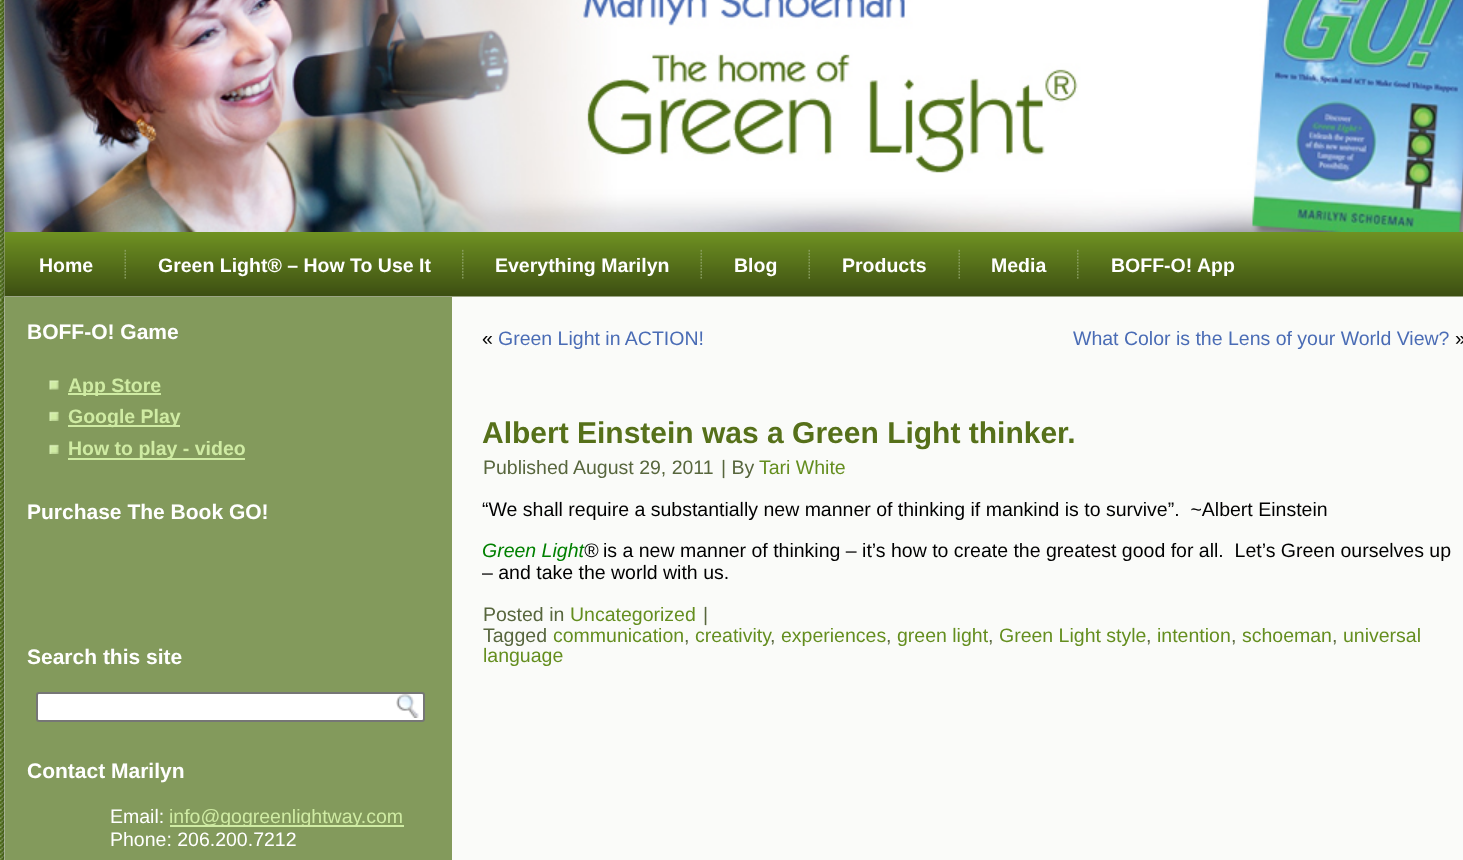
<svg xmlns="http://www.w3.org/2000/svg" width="1463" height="860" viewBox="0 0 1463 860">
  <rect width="100%" height="100%" fill="#ffffff"/>
  <image x="0" y="0" width="5" height="860" href="img1.png"/>
  <image x="0" y="0" width="1452" height="860" href="img2.png"/>
  <image x="4" y="0" width="1459" height="232" href="img3.png"/>
  <image x="37" y="0" width="1426" height="230" href="img4.png"/>
  <rect x="1452" y="296" width="11" height="564" fill="#fafbf9"/>
  <image x="4" y="232" width="1459" height="65" href="img5.png"/>
  <text x="39" y="272" font-family="Liberation Sans" font-size="19.5" font-weight="bold" fill="#ffffff">Home</text>
  <image x="124" y="249" width="2" height="30" href="img6.png"/>
  <text x="158" y="272" font-family="Liberation Sans" font-size="19.5" font-weight="bold" fill="#ffffff">Green Light® – How To Use It</text>
  <image x="462" y="249" width="2" height="30" href="img7.png"/>
  <text x="495" y="272" font-family="Liberation Sans" font-size="19.5" font-weight="bold" fill="#ffffff">Everything Marilyn</text>
  <image x="700" y="249" width="2" height="30" href="img6.png"/>
  <text x="734" y="272" font-family="Liberation Sans" font-size="19.5" font-weight="bold" fill="#ffffff">Blog</text>
  <image x="808" y="249" width="2" height="30" href="img6.png"/>
  <text x="842" y="272" font-family="Liberation Sans" font-size="19.5" font-weight="bold" fill="#ffffff">Products</text>
  <image x="958" y="249" width="2" height="30" href="img6.png"/>
  <text x="991" y="272" font-family="Liberation Sans" font-size="19.5" font-weight="bold" fill="#ffffff">Media</text>
  <image x="1077" y="249" width="2" height="30" href="img7.png"/>
  <text x="1111" y="272" font-family="Liberation Sans" font-size="19.5" font-weight="bold" fill="#ffffff">BOFF-O! App</text>
  <rect x="5" y="297" width="447" height="563" fill="#839a5c"/>
  <text x="27" y="339" font-family="Liberation Sans" font-size="21" font-weight="bold" fill="#ffffff">BOFF-O! Game</text>
  <image x="49" y="380" width="10" height="10" href="img8.png"/>
  <rect x="68" y="393" width="93" height="2" fill="#cfeba3"/>
  <text x="68" y="392" font-family="Liberation Sans" font-size="19.5" font-weight="bold" fill="#cfeba3">App Store</text>
  <image x="49" y="411" width="10" height="10" href="img9.png"/>
  <rect x="68" y="425" width="112" height="2" fill="#cfeba3"/>
  <text x="68" y="423" font-family="Liberation Sans" font-size="19.5" font-weight="bold" fill="#cfeba3">Google Play</text>
  <image x="49" y="444" width="10" height="10" href="img9.png"/>
  <rect x="68" y="458" width="177" height="2" fill="#cfeba3"/>
  <text x="68" y="455" font-family="Liberation Sans" font-size="19.5" font-weight="bold" fill="#cfeba3">How to play - video</text>
  <text x="27" y="519" font-family="Liberation Sans" font-size="21" font-weight="bold" fill="#ffffff">Purchase The Book GO!</text>
  <text x="27" y="664" font-family="Liberation Sans" font-size="21" font-weight="bold" fill="#ffffff">Search this site</text>
  <rect x="37" y="693" width="387" height="28" rx="2" fill="#ffffff" stroke="#767676" stroke-width="2"/>
  <image x="396" y="694" width="23" height="24" href="img10.png"/>
  <text x="27" y="778" font-family="Liberation Sans" font-size="21" font-weight="bold" fill="#ffffff">Contact Marilyn</text>
  <text x="110" y="823" font-family="Liberation Sans" font-size="19.5" fill="#ffffff">Email:</text>
  <rect x="170" y="825" width="234" height="2" fill="#cfeba3"/>
  <text x="169" y="823" font-family="Liberation Sans" font-size="19.5" fill="#cfeba3">info@gogreenlightway.com</text>
  <text x="110" y="846" font-family="Liberation Sans" font-size="19.5" fill="#ffffff">Phone: 206.200.7212</text>
  <text x="482" y="345" font-family="Liberation Sans" font-size="19.5" fill="#000000">«</text>
  <text x="498" y="345" font-family="Liberation Sans" font-size="19.5" fill="#4a6cb5">Green Light in ACTION!</text>
  <text x="1073" y="345" font-family="Liberation Sans" font-size="19.5" fill="#4a6cb5">What Color is the Lens of your World View?</text>
  <text x="1455" y="345" font-family="Liberation Sans" font-size="19.5" fill="#000000">»</text>
  <text x="482" y="443" font-family="Liberation Sans" font-size="30" font-weight="bold" fill="#56701a">Albert Einstein was a Green Light thinker.</text>
  <text x="483" y="474" font-family="Liberation Sans" font-size="19.5" fill="#57663d">Published</text>
  <text x="573" y="474" font-family="Liberation Sans" font-size="19.5" fill="#57663d">August 29, 2011</text>
  <text x="721" y="474" font-family="Liberation Sans" font-size="19.5" fill="#57663d">| By</text>
  <text x="759" y="474" font-family="Liberation Sans" font-size="19.5" fill="#648e1f">Tari White</text>
  <text x="482" y="516" font-family="Liberation Sans" font-size="19.5" fill="#000000" xml:space="preserve">“We shall require a substantially new manner of thinking if mankind is to survive”.  ~Albert Einstein</text>
  <text x="482" y="557" font-family="Liberation Sans" font-size="19.5" font-style="italic" fill="#008000">Green Light</text>
  <text x="584" y="557" font-family="Liberation Sans" font-size="19.5" font-style="italic" fill="#000000">®</text>
  <text x="603" y="557" font-family="Liberation Sans" font-size="19.5" fill="#000000" xml:space="preserve">is a new manner of thinking – it’s how to create the greatest good for all.  Let’s Green ourselves up</text>
  <text x="482" y="579" font-family="Liberation Sans" font-size="19.5" fill="#000000">– and take the world with us.</text>
  <text x="483" y="621" font-family="Liberation Sans" font-size="19.5" fill="#57663d">Posted in</text>
  <text x="570" y="621" font-family="Liberation Sans" font-size="19.5" fill="#648e1f">Uncategorized</text>
  <text x="703" y="621" font-family="Liberation Sans" font-size="19.5" fill="#57663d">|</text>
  <text x="483" y="642" font-family="Liberation Sans" font-size="19.5" fill="#57663d">Tagged</text>
  <text x="553" y="642" font-family="Liberation Sans" font-size="19.5" fill="#648e1f">communication</text>
  <text x="684" y="642" font-family="Liberation Sans" font-size="19.5" fill="#57663d">,</text>
  <text x="695" y="642" font-family="Liberation Sans" font-size="19.5" fill="#648e1f">creativity</text>
  <text x="770" y="642" font-family="Liberation Sans" font-size="19.5" fill="#57663d">,</text>
  <text x="781" y="642" font-family="Liberation Sans" font-size="19.5" fill="#648e1f">experiences</text>
  <text x="886" y="642" font-family="Liberation Sans" font-size="19.5" fill="#57663d">,</text>
  <text x="897" y="642" font-family="Liberation Sans" font-size="19.5" fill="#648e1f">green light</text>
  <text x="988" y="642" font-family="Liberation Sans" font-size="19.5" fill="#57663d">,</text>
  <text x="999" y="642" font-family="Liberation Sans" font-size="19.5" fill="#648e1f">Green Light style</text>
  <text x="1146" y="642" font-family="Liberation Sans" font-size="19.5" fill="#57663d">,</text>
  <text x="1157" y="642" font-family="Liberation Sans" font-size="19.5" fill="#648e1f">intention</text>
  <text x="1231" y="642" font-family="Liberation Sans" font-size="19.5" fill="#57663d">,</text>
  <text x="1242" y="642" font-family="Liberation Sans" font-size="19.5" fill="#648e1f">schoeman</text>
  <text x="1332" y="642" font-family="Liberation Sans" font-size="19.5" fill="#57663d">,</text>
  <text x="1343" y="642" font-family="Liberation Sans" font-size="19.5" fill="#648e1f">universal</text>
  <text x="483" y="662" font-family="Liberation Sans" font-size="19.5" fill="#648e1f">language</text>
</svg>
